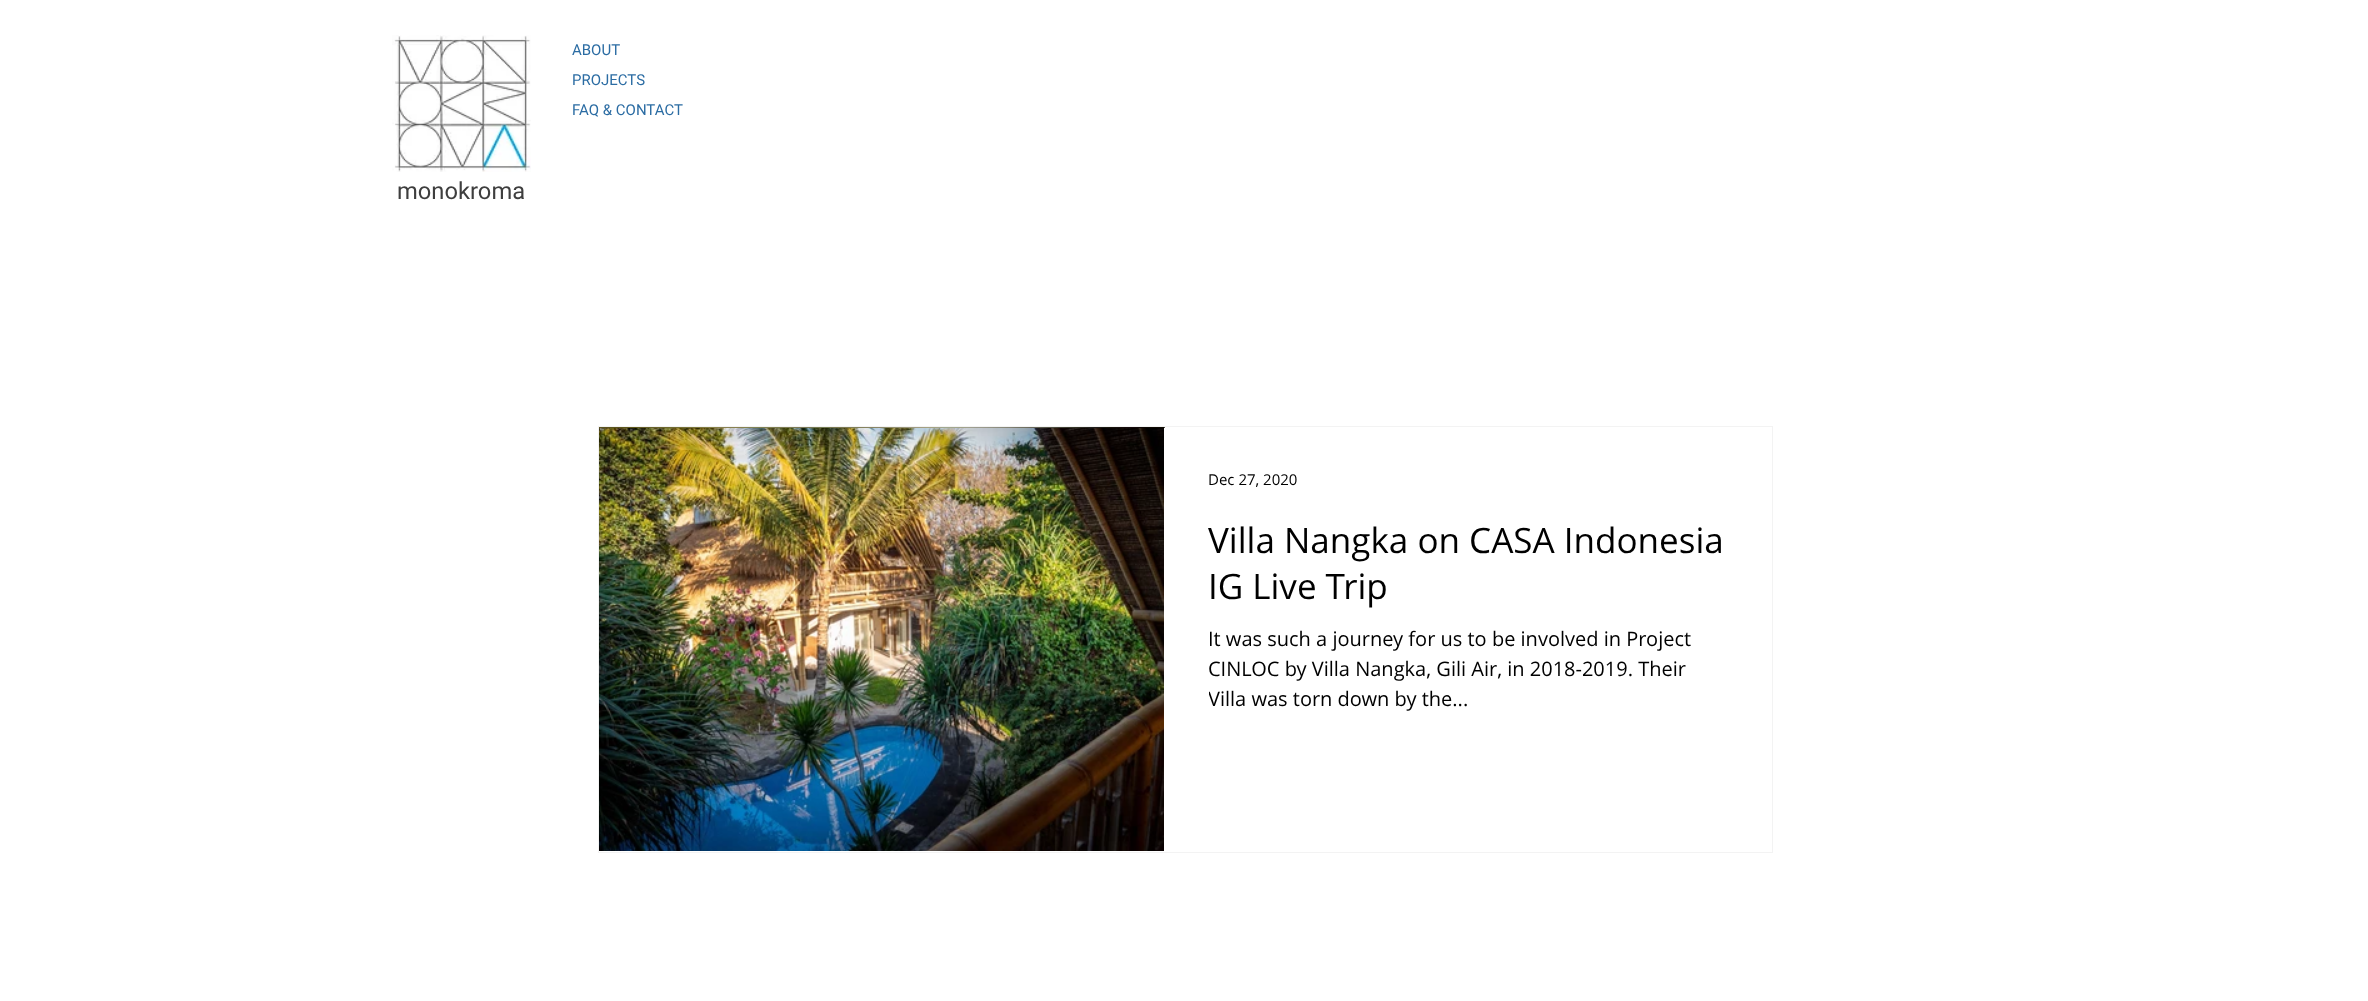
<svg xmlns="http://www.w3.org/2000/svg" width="2368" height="1001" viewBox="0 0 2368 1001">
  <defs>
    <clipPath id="clip1"><rect x="1209" y="624" width="517" height="90"/></clipPath>
  </defs>
  <rect width="100%" height="100%" fill="#ffffff"/>
  <image x="392" y="35" width="139" height="137" href="img1.png"/>
  <text x="572" y="55" font-family="Roboto" font-size="15" fill="#2b6ca3">ABOUT</text>
  <text x="572" y="85" font-family="Roboto" font-size="15" fill="#2b6ca3">PROJECTS</text>
  <text x="572" y="115" font-family="Roboto" font-size="15" fill="#2b6ca3">FAQ &amp; CONTACT</text>
  <text x="397" y="199" font-family="Roboto" font-size="23.75" fill="#3e3e3e">monokroma</text>
  <rect x="598.5" y="426.5" width="1174" height="426" fill="none" stroke="#f3f3f3"/>
  <image x="599" y="427" width="566" height="1" href="img2.png"/>
  <image x="599" y="428" width="565" height="423" href="img3.png"/>
  <text x="1208" y="485" font-family="Open Sans" font-size="15" fill="#000000">Dec 27, 2020</text>
  <text x="1208" y="553" font-family="Open Sans" font-size="35" fill="#000000">Villa Nangka on CASA Indonesia</text>
  <text x="1208" y="599" font-family="Open Sans" font-size="35" fill="#000000">IG Live Trip</text>
  <text x="1208" y="646" font-family="Open Sans" font-size="20" fill="#000000">It was such a journey for us to be involved in Project</text>
  <text x="1208" y="676" font-family="Open Sans" font-size="20" fill="#000000">CINLOC by Villa Nangka, Gili Air, in 2018-2019. Their</text>
  <g clip-path="url(#clip1)">
    <text x="1208" y="706" font-family="Open Sans" font-size="20" fill="#000000">Villa was torn down by the...</text>
  </g>
</svg>
